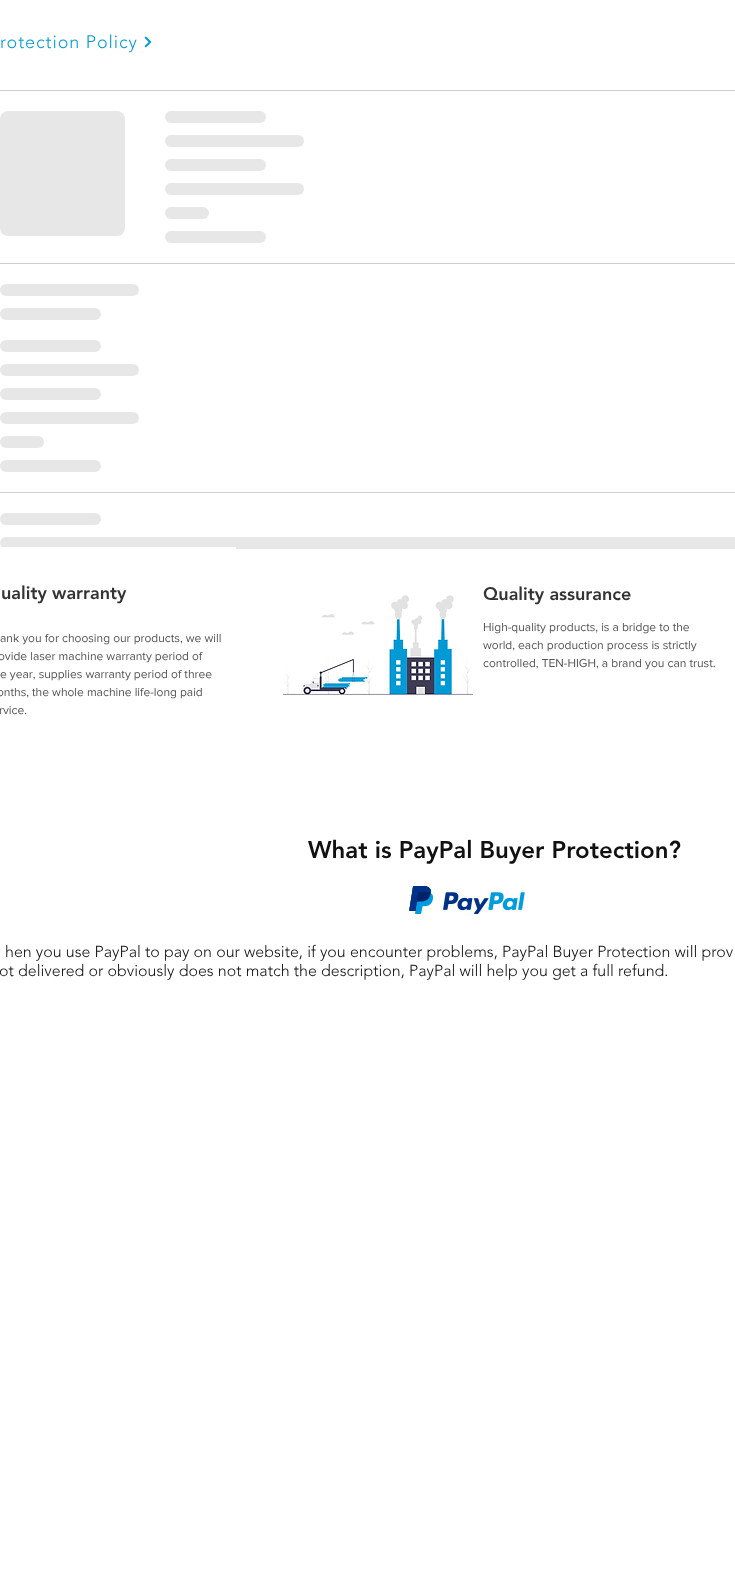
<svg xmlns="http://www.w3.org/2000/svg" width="735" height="1569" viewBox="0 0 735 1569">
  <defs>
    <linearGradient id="g1" gradientUnits="userSpaceOnUse" x1="0" y1="174" x2="500" y2="173"><stop offset="0.25" stop-color="#e7e7e7"/><stop offset="0.37" stop-color="#cfcfcf"/><stop offset="0.63" stop-color="#e7e7e7"/></linearGradient>
    <linearGradient id="g2" gradientUnits="userSpaceOnUse" x1="165" y1="117" x2="569" y2="117"><stop offset="0.25" stop-color="#e7e7e7"/><stop offset="0.37" stop-color="#cfcfcf"/><stop offset="0.63" stop-color="#e7e7e7"/></linearGradient>
    <linearGradient id="g3" gradientUnits="userSpaceOnUse" x1="165" y1="141" x2="721" y2="141"><stop offset="0.25" stop-color="#e7e7e7"/><stop offset="0.37" stop-color="#cfcfcf"/><stop offset="0.63" stop-color="#e7e7e7"/></linearGradient>
    <linearGradient id="g4" gradientUnits="userSpaceOnUse" x1="165" y1="165" x2="569" y2="165"><stop offset="0.25" stop-color="#e7e7e7"/><stop offset="0.37" stop-color="#cfcfcf"/><stop offset="0.63" stop-color="#e7e7e7"/></linearGradient>
    <linearGradient id="g5" gradientUnits="userSpaceOnUse" x1="165" y1="189" x2="721" y2="189"><stop offset="0.25" stop-color="#e7e7e7"/><stop offset="0.37" stop-color="#cfcfcf"/><stop offset="0.63" stop-color="#e7e7e7"/></linearGradient>
    <linearGradient id="g6" gradientUnits="userSpaceOnUse" x1="165" y1="213" x2="341" y2="213"><stop offset="0.25" stop-color="#e7e7e7"/><stop offset="0.37" stop-color="#cfcfcf"/><stop offset="0.63" stop-color="#e7e7e7"/></linearGradient>
    <linearGradient id="g7" gradientUnits="userSpaceOnUse" x1="165" y1="237" x2="569" y2="237"><stop offset="0.25" stop-color="#e7e7e7"/><stop offset="0.37" stop-color="#cfcfcf"/><stop offset="0.63" stop-color="#e7e7e7"/></linearGradient>
    <linearGradient id="g8" gradientUnits="userSpaceOnUse" x1="0" y1="290" x2="556" y2="290"><stop offset="0.25" stop-color="#e7e7e7"/><stop offset="0.37" stop-color="#cfcfcf"/><stop offset="0.63" stop-color="#e7e7e7"/></linearGradient>
    <linearGradient id="g9" gradientUnits="userSpaceOnUse" x1="0" y1="314" x2="404" y2="314"><stop offset="0.25" stop-color="#e7e7e7"/><stop offset="0.37" stop-color="#cfcfcf"/><stop offset="0.63" stop-color="#e7e7e7"/></linearGradient>
    <linearGradient id="g10" gradientUnits="userSpaceOnUse" x1="0" y1="346" x2="404" y2="346"><stop offset="0.25" stop-color="#e7e7e7"/><stop offset="0.37" stop-color="#cfcfcf"/><stop offset="0.63" stop-color="#e7e7e7"/></linearGradient>
    <linearGradient id="g11" gradientUnits="userSpaceOnUse" x1="0" y1="370" x2="556" y2="370"><stop offset="0.25" stop-color="#e7e7e7"/><stop offset="0.37" stop-color="#cfcfcf"/><stop offset="0.63" stop-color="#e7e7e7"/></linearGradient>
    <linearGradient id="g12" gradientUnits="userSpaceOnUse" x1="0" y1="394" x2="404" y2="394"><stop offset="0.25" stop-color="#e7e7e7"/><stop offset="0.37" stop-color="#cfcfcf"/><stop offset="0.63" stop-color="#e7e7e7"/></linearGradient>
    <linearGradient id="g13" gradientUnits="userSpaceOnUse" x1="0" y1="418" x2="556" y2="418"><stop offset="0.25" stop-color="#e7e7e7"/><stop offset="0.37" stop-color="#cfcfcf"/><stop offset="0.63" stop-color="#e7e7e7"/></linearGradient>
    <linearGradient id="g14" gradientUnits="userSpaceOnUse" x1="0" y1="442" x2="176" y2="442"><stop offset="0.25" stop-color="#e7e7e7"/><stop offset="0.37" stop-color="#cfcfcf"/><stop offset="0.63" stop-color="#e7e7e7"/></linearGradient>
    <linearGradient id="g15" gradientUnits="userSpaceOnUse" x1="0" y1="466" x2="404" y2="466"><stop offset="0.25" stop-color="#e7e7e7"/><stop offset="0.37" stop-color="#cfcfcf"/><stop offset="0.63" stop-color="#e7e7e7"/></linearGradient>
    <linearGradient id="g16" gradientUnits="userSpaceOnUse" x1="0" y1="519" x2="404" y2="519"><stop offset="0.25" stop-color="#e7e7e7"/><stop offset="0.37" stop-color="#cfcfcf"/><stop offset="0.63" stop-color="#e7e7e7"/></linearGradient>
    <linearGradient id="g17" gradientUnits="userSpaceOnUse" x1="0" y1="543" x2="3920" y2="543"><stop offset="0.25" stop-color="#e7e7e7"/><stop offset="0.37" stop-color="#cfcfcf"/><stop offset="0.63" stop-color="#e7e7e7"/></linearGradient>
  </defs>
  <rect width="100%" height="100%" fill="#ffffff"/>
  <text x="0" y="48" font-family="'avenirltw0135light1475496'" font-size="18" font-weight="300" letter-spacing="0.9" fill="#009ad6">rotection Policy</text>
  <image x="144" y="36" width="8" height="12" href="img1.png"/>
  <rect x="0" y="90" width="735" height="1" fill="#cfcfcf"/>
  <rect x="0" y="111" width="125" height="125" rx="8" fill="url(#g1)"/>
  <rect x="165" y="111" width="101" height="12" rx="6" fill="url(#g2)"/>
  <rect x="165" y="135" width="139" height="12" rx="6" fill="url(#g3)"/>
  <rect x="165" y="159" width="101" height="12" rx="6" fill="url(#g4)"/>
  <rect x="165" y="183" width="139" height="12" rx="6" fill="url(#g5)"/>
  <rect x="165" y="207" width="44" height="12" rx="6" fill="url(#g6)"/>
  <rect x="165" y="231" width="101" height="12" rx="6" fill="url(#g7)"/>
  <rect x="0" y="263" width="735" height="1" fill="#cfcfcf"/>
  <rect x="0" y="284" width="139" height="12" rx="6" fill="url(#g8)"/>
  <rect x="0" y="308" width="101" height="12" rx="6" fill="url(#g9)"/>
  <rect x="0" y="340" width="101" height="12" rx="6" fill="url(#g10)"/>
  <rect x="0" y="364" width="139" height="12" rx="6" fill="url(#g11)"/>
  <rect x="0" y="388" width="101" height="12" rx="6" fill="url(#g12)"/>
  <rect x="0" y="412" width="139" height="12" rx="6" fill="url(#g13)"/>
  <rect x="0" y="436" width="44" height="12" rx="6" fill="url(#g14)"/>
  <rect x="0" y="460" width="101" height="12" rx="6" fill="url(#g15)"/>
  <rect x="0" y="492" width="735" height="1" fill="#cfcfcf"/>
  <rect x="0" y="513" width="101" height="12" rx="6" fill="url(#g16)"/>
  <rect x="0" y="537" width="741" height="12" rx="6" fill="url(#g17)"/>
  <rect x="2" y="547" width="234" height="2" fill="#ffffff"/>
  <text x="1" y="599" font-family="'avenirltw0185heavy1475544'" font-size="18" font-weight="900" fill="#333333">uality warranty</text>
  <text x="0" y="642" font-family="'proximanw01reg'" font-size="12" fill="#545454">ank you for choosing our products, we will</text>
  <text x="-2" y="660" font-family="'proximanw01reg'" font-size="12" fill="#545454">ovide laser machine warranty period of</text>
  <text x="0" y="678" font-family="'proximanw01reg'" font-size="12" fill="#545454">e year, supplies warranty period of three</text>
  <text x="-3" y="696" font-family="'proximanw01reg'" font-size="12" fill="#545454">onths, the whole machine life-long paid</text>
  <text x="-1" y="714" font-family="'proximanw01reg'" font-size="12" fill="#545454">rvice.</text>
  <image x="283" y="595" width="190" height="100" href="img2.png"/>
  <text x="483" y="600" font-family="'avenirltw0185heavy1475544'" font-size="18" font-weight="900" fill="#333333">Quality assurance</text>
  <text x="483" y="631" font-family="'proximanw01reg'" font-size="12" fill="#545454">High-quality products, is a bridge to the</text>
  <text x="483" y="649" font-family="'proximanw01reg'" font-size="12" fill="#545454">world, each production process is strictly</text>
  <text x="483" y="667" font-family="'proximanw01reg'" font-size="12" fill="#545454">controlled, TEN-HIGH, a brand you can trust.</text>
  <text x="308" y="858" font-family="'avenirltw0185heavy1475544'" font-size="24" font-weight="900" fill="#111111">What is PayPal Buyer Protection?</text>
  <image x="409" y="886" width="116" height="28" href="img3.png"/>
  <text x="5" y="957" font-family="'avenirltw0135light1475496'" font-size="16" font-weight="300" fill="#111111">hen you use PayPal to pay on our website, if you encounter problems, PayPal Buyer Protection will prov</text>
  <text x="-1" y="976" font-family="'avenirltw0135light1475496'" font-size="16" font-weight="300" fill="#111111">ot delivered or obviously does not match the description, PayPal will help you get a full refund.</text>
</svg>
